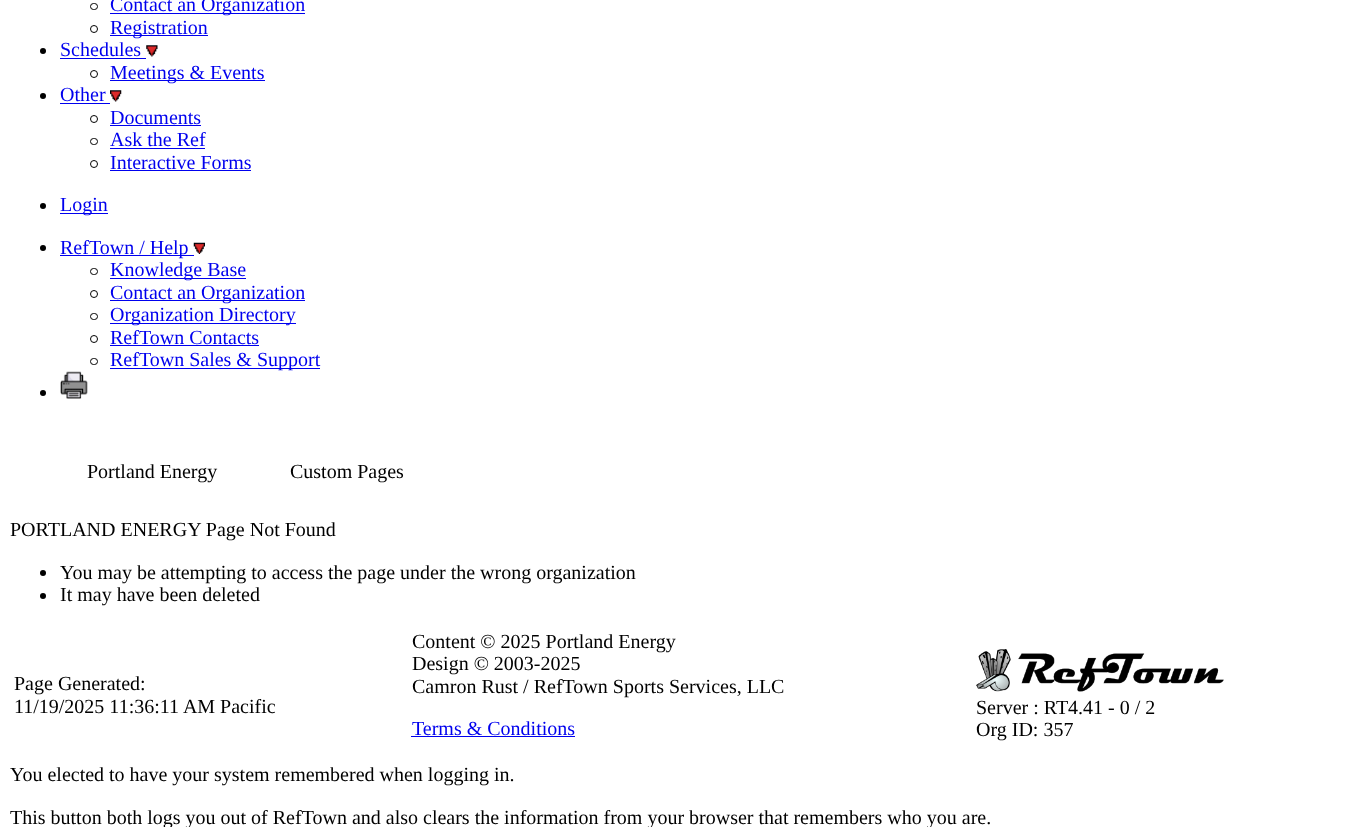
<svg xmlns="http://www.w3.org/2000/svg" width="1367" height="827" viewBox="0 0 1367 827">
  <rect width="100%" height="100%" fill="#ffffff"/>
  <rect x="90.5" y="3.5" width="7" height="6" rx="3" fill="none" stroke="#000000"/>
  <rect x="110" y="13" width="195" height="1" fill="#0000ee"/>
  <text x="110" y="11" font-family="Liberation Serif" font-size="20" fill="#0000ee">Contact an Organization</text>
  <circle cx="94" cy="29" r="3.5" fill="none" stroke="#000000"/>
  <rect x="110" y="35" width="98" height="1" fill="#0000ee"/>
  <text x="110" y="34" font-family="Liberation Serif" font-size="20" fill="#0000ee">Registration</text>
  <circle cx="43" cy="51" r="3" fill="#000000"/>
  <text x="60" y="56" font-family="Liberation Serif" font-size="20" fill="#0000ee">Schedules</text>
  <rect x="60" y="58" width="86" height="1" fill="#0000ee"/>
  <image x="146" y="45" width="12" height="12" href="img1.png"/>
  <circle cx="94" cy="74" r="3.5" fill="none" stroke="#000000"/>
  <rect x="110" y="80" width="155" height="1" fill="#0000ee"/>
  <text x="110" y="79" font-family="Liberation Serif" font-size="20" fill="#0000ee">Meetings &amp; Events</text>
  <circle cx="43" cy="96" r="3" fill="#000000"/>
  <text x="60" y="101" font-family="Liberation Serif" font-size="20" fill="#0000ee">Other</text>
  <rect x="60" y="103" width="50" height="1" fill="#0000ee"/>
  <image x="110" y="90" width="12" height="12" href="img2.png"/>
  <circle cx="94" cy="119" r="3.5" fill="none" stroke="#000000"/>
  <text x="110" y="124" font-family="Liberation Serif" font-size="20" fill="#0000ee">Documents</text>
  <rect x="110" y="125" width="91" height="1" fill="#0000ee"/>
  <rect x="90.5" y="138.5" width="7" height="6" rx="3" fill="none" stroke="#000000"/>
  <text x="110" y="146" font-family="Liberation Serif" font-size="20" fill="#0000ee">Ask the Ref</text>
  <rect x="110" y="148" width="95" height="1" fill="#0000ee"/>
  <circle cx="94" cy="164" r="3.5" fill="none" stroke="#000000"/>
  <text x="110" y="169" font-family="Liberation Serif" font-size="20" fill="#0000ee">Interactive Forms</text>
  <rect x="110" y="170" width="141" height="1" fill="#0000ee"/>
  <circle cx="43" cy="206" r="3" fill="#000000"/>
  <rect x="60" y="213" width="48" height="1" fill="#0000ee"/>
  <text x="60" y="211" font-family="Liberation Serif" font-size="20" fill="#0000ee">Login</text>
  <circle cx="43" cy="248" r="3" fill="#000000"/>
  <rect x="60" y="255" width="134" height="1" fill="#0000ee"/>
  <text x="60" y="254" font-family="Liberation Serif" font-size="20" fill="#0000ee">RefTown / Help</text>
  <image x="193" y="242" width="12" height="12" href="img3.png"/>
  <rect x="90.5" y="268.5" width="7" height="6" rx="3" fill="none" stroke="#000000"/>
  <rect x="110" y="278" width="136" height="1" fill="#0000ee"/>
  <text x="110" y="276" font-family="Liberation Serif" font-size="20" fill="#0000ee">Knowledge Base</text>
  <circle cx="94" cy="294" r="3.5" fill="none" stroke="#000000"/>
  <rect x="110" y="300" width="195" height="1" fill="#0000ee"/>
  <text x="110" y="299" font-family="Liberation Serif" font-size="20" fill="#0000ee">Contact an Organization</text>
  <rect x="90.5" y="313.5" width="7" height="6" rx="3" fill="none" stroke="#000000"/>
  <rect x="110" y="323" width="186" height="1" fill="#0000ee"/>
  <text x="110" y="321" font-family="Liberation Serif" font-size="20" fill="#0000ee">Organization Directory</text>
  <circle cx="94" cy="339" r="3.5" fill="none" stroke="#000000"/>
  <text x="110" y="344" font-family="Liberation Serif" font-size="20" fill="#0000ee">RefTown Contacts</text>
  <rect x="110" y="345" width="149" height="1" fill="#0000ee"/>
  <rect x="90.5" y="358.5" width="7" height="6" rx="3" fill="none" stroke="#000000"/>
  <rect x="110" y="368" width="210" height="1" fill="#0000ee"/>
  <text x="110" y="366" font-family="Liberation Serif" font-size="20" fill="#0000ee">RefTown Sales &amp; Support</text>
  <circle cx="43" cy="393" r="3" fill="#000000"/>
  <image x="60" y="371" width="28" height="28" href="img4.png"/>
  <text x="87" y="478" font-family="Liberation Serif" font-size="20" fill="#000000">Portland Energy</text>
  <text x="290" y="478" font-family="Liberation Serif" font-size="20" fill="#000000">Custom Pages</text>
  <text x="10" y="536" font-family="Liberation Serif" font-size="20" fill="#000000">PORTLAND ENERGY Page Not Found</text>
  <circle cx="43" cy="573" r="3" fill="#000000"/>
  <text x="60" y="579" font-family="Liberation Serif" font-size="20" fill="#000000">You may be attempting to access the page under the wrong organization</text>
  <circle cx="43" cy="596" r="3" fill="#000000"/>
  <text x="60" y="601" font-family="Liberation Serif" font-size="20" fill="#000000">It may have been deleted</text>
  <text x="14" y="690" font-family="Liberation Serif" font-size="20" fill="#000000">Page Generated:</text>
  <text x="14" y="713" font-family="Liberation Serif" font-size="20" fill="#000000">11/19/2025 11:36:11 AM Pacific</text>
  <text x="412" y="648" font-family="Liberation Serif" font-size="20" fill="#000000">Content © 2025 Portland Energy</text>
  <text x="412" y="670" font-family="Liberation Serif" font-size="20" fill="#000000">Design © 2003-2025</text>
  <text x="412" y="693" font-family="Liberation Serif" font-size="20" fill="#000000">Camron Rust / RefTown Sports Services, LLC</text>
  <text x="412" y="735" font-family="Liberation Serif" font-size="20" fill="#0000ee">Terms &amp; Conditions</text>
  <rect x="411" y="736" width="164" height="1" fill="#0000ee"/>
  <image x="976" y="649" width="248" height="43" href="img5.png"/>
  <text x="976" y="714" font-family="Liberation Serif" font-size="20" fill="#000000">Server : RT4.41 - 0 / 2</text>
  <text x="976" y="736" font-family="Liberation Serif" font-size="20" fill="#000000">Org ID: 357</text>
  <text x="10" y="781" font-family="Liberation Serif" font-size="20" fill="#000000">You elected to have your system remembered when logging in.</text>
  <text x="10" y="824" font-family="Liberation Serif" font-size="20" fill="#000000">This button both logs you out of RefTown and also clears the information from your browser that remembers who you are.</text>
</svg>
